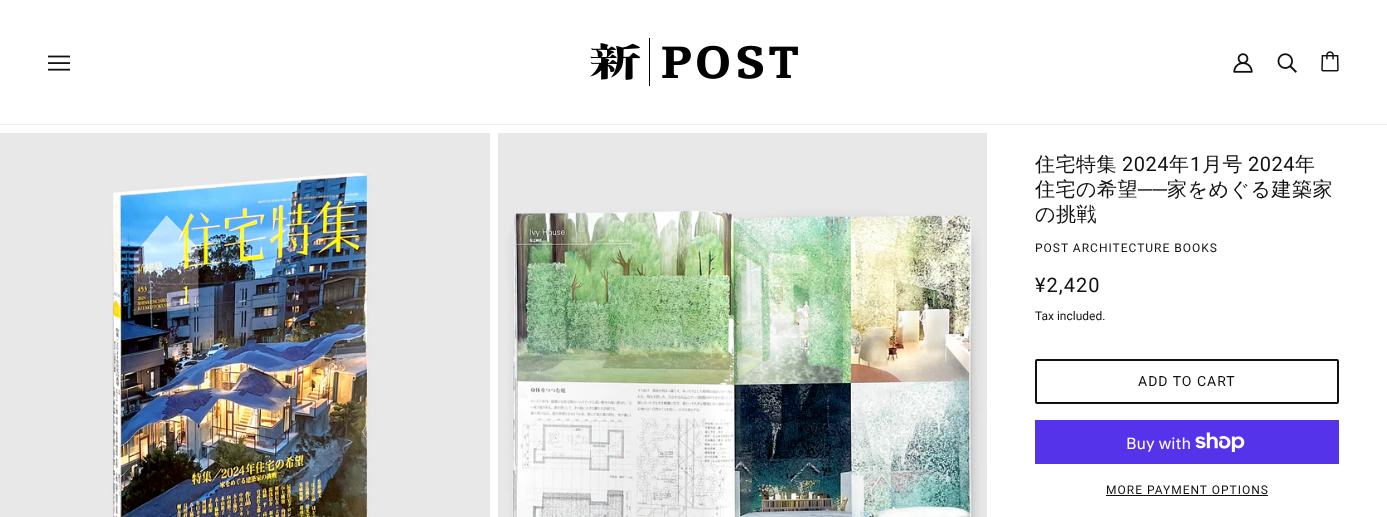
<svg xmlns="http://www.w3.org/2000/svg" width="1387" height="517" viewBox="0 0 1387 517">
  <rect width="100%" height="100%" fill="#ffffff"/>
  <rect x="0" y="124" width="1387" height="1" fill="#eeeeee"/>
  <image x="48" y="55" width="22" height="16" href="img1.png"/>
  <image x="590" y="38" width="208" height="48" href="img2.png"/>
  <image x="1233" y="53" width="20" height="20" href="img3.png"/>
  <image x="1277" y="53" width="20" height="20" href="img4.png"/>
  <image x="1321" y="51" width="18" height="21" href="img5.png"/>
  <image x="0" y="133" width="490" height="384" href="img6.png"/>
  <image x="498" y="133" width="489" height="384" href="img7.png"/>
  <text x="1035" y="171" font-family="WenQuanYi Zen Hei" font-size="20" font-weight="500" letter-spacing="0.5" fill="#111111">住宅特集</text>
  <text x="1122" y="171" font-family="Roboto" font-size="20" letter-spacing="0.5" fill="#111111">2024</text>
  <text x="1169" y="171" font-family="WenQuanYi Zen Hei" font-size="20" font-weight="500" letter-spacing="0.5" fill="#111111">年</text>
  <text x="1190" y="171" font-family="Roboto" font-size="20" letter-spacing="0.5" fill="#111111">1</text>
  <text x="1202" y="171" font-family="WenQuanYi Zen Hei" font-size="20" font-weight="500" letter-spacing="0.5" fill="#111111">月号</text>
  <text x="1248" y="171" font-family="Roboto" font-size="20" letter-spacing="0.5" fill="#111111">2024</text>
  <text x="1295" y="171" font-family="WenQuanYi Zen Hei" font-size="20" font-weight="500" letter-spacing="0.5" fill="#111111">年</text>
  <text x="1035" y="196" font-family="WenQuanYi Zen Hei" font-size="20" font-weight="500" letter-spacing="0.5" fill="#111111">住宅の希望</text>
  <text x="1138" y="196" font-family="Liberation Sans" font-size="20" letter-spacing="0.5" fill="#111111">──</text>
  <text x="1167" y="196" font-family="WenQuanYi Zen Hei" font-size="20" font-weight="500" letter-spacing="0.5" fill="#111111">家をめぐる建築家</text>
  <text x="1035" y="221" font-family="WenQuanYi Zen Hei" font-size="20" font-weight="500" letter-spacing="0.5" fill="#111111">の挑戦</text>
  <text x="1035" y="252" font-family="Roboto" font-size="12" letter-spacing="1" fill="#111111">POST ARCHITECTURE BOOKS</text>
  <text x="1035" y="292" font-family="Roboto" font-size="20" letter-spacing="1" fill="#111111">¥2,420</text>
  <text x="1035" y="320" font-family="Roboto" font-size="12" fill="#111111">Tax included.</text>
  <rect x="1036" y="360" width="302" height="43" rx="1" fill="none" stroke="#111111" stroke-width="2"/>
  <text x="1138" y="386" font-family="Roboto" font-size="14" letter-spacing="1" fill="#111111">ADD TO CART</text>
  <rect x="1035" y="420" width="304" height="44" fill="#5433eb"/>
  <text x="1126" y="449" font-family="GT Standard" font-size="16" fill="#ffffff">Buy with</text>
  <image x="1195" y="432" width="50" height="20" href="img8.png"/>
  <text x="1106" y="494" font-family="Roboto" font-size="12" letter-spacing="1" fill="#111111">MORE PAYMENT OPTIONS</text>
  <rect x="1106" y="495" width="162" height="1" fill="#111111"/>
</svg>
